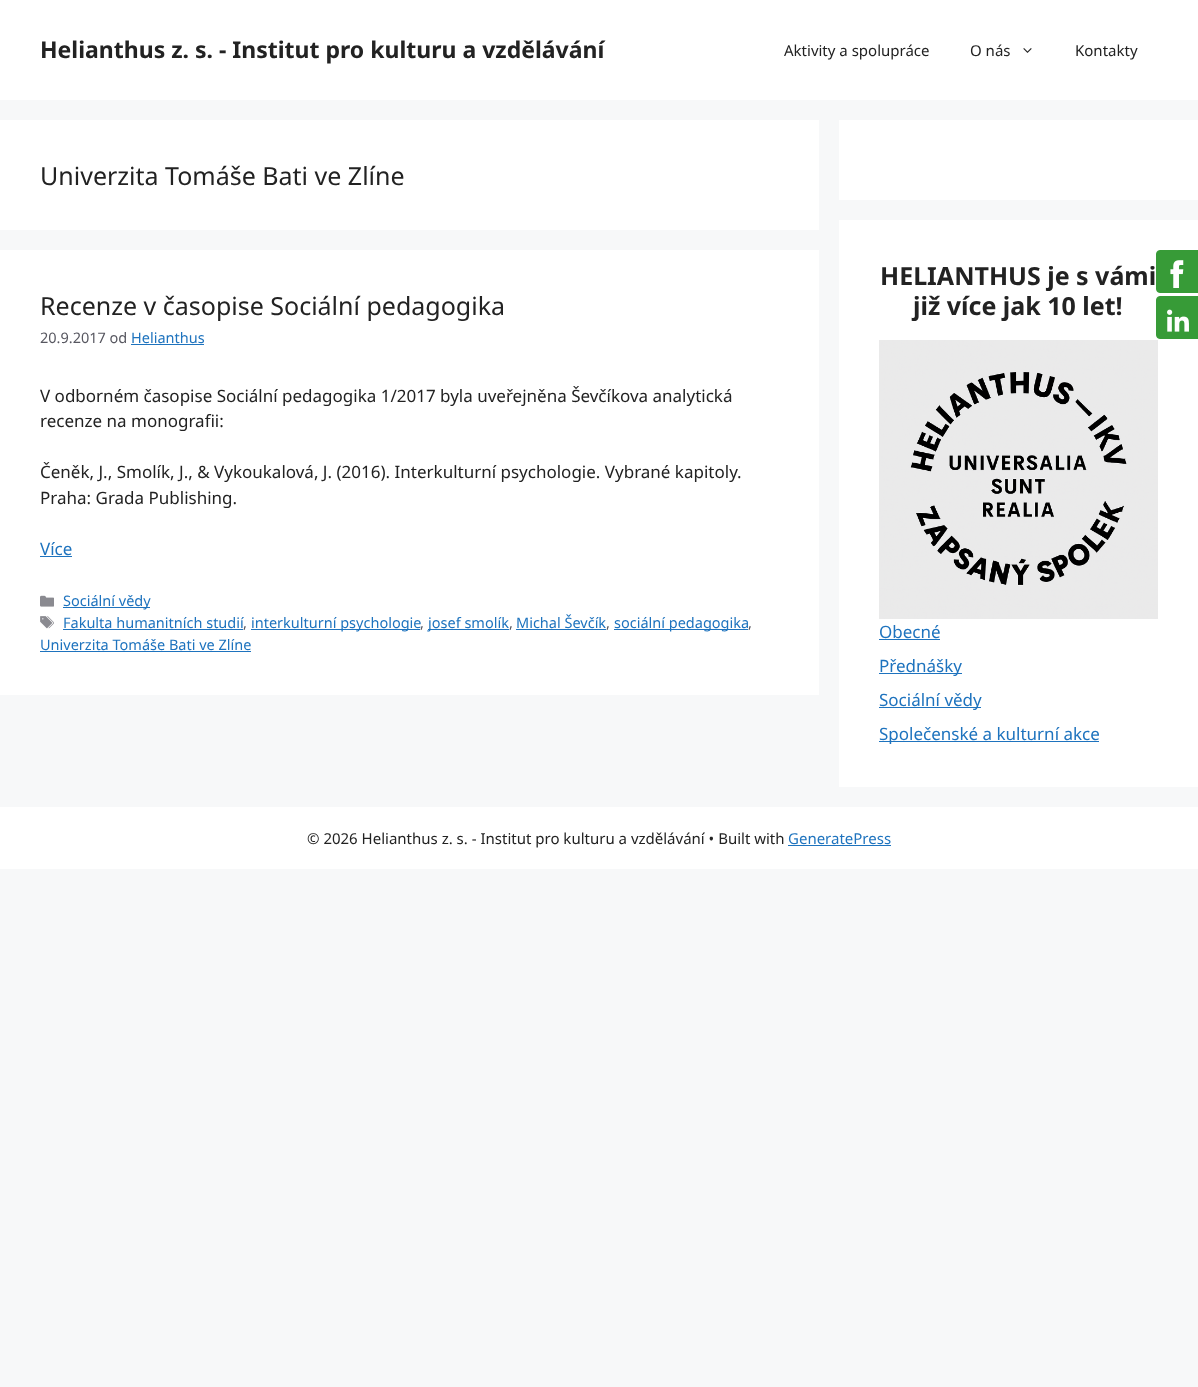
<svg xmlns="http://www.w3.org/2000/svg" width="1198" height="1387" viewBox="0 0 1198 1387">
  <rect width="100%" height="100%" fill="#f7f8f9"/>
  <rect x="0" y="0" width="1198" height="100" fill="#ffffff"/>
  <text x="40" y="58" font-family="Noto Sans" font-size="23" font-weight="bold" fill="#222222">Helianthus z. s. - Institut pro kulturu a vzdělávání</text>
  <text x="784" y="56" font-family="Noto Sans" font-size="15" fill="#222222">Aktivity a spolupráce</text>
  <text x="970" y="56" font-family="Noto Sans" font-size="15" fill="#222222">O nás</text>
  <image x="1023" y="48" width="9" height="5" href="img1.png"/>
  <text x="1075" y="56" font-family="Noto Sans" font-size="15" fill="#222222">Kontakty</text>
  <rect x="0" y="120" width="819" height="110" fill="#ffffff"/>
  <text x="40" y="185" font-family="Noto Sans" font-size="25" fill="#222222">Univerzita Tomáše Bati ve Zlíne</text>
  <rect x="0" y="250" width="819" height="445" fill="#ffffff"/>
  <text x="40" y="315" font-family="Noto Sans" font-size="25" fill="#222222">Recenze v časopise Sociální pedagogika</text>
  <text x="40" y="343" font-family="Noto Sans" font-size="14.5" fill="#575760">20.9.2017 od</text>
  <text x="131" y="343" font-family="Noto Sans" font-size="14.5" fill="#1e73be">Helianthus</text>
  <rect x="131" y="344" width="73" height="1" fill="#1e73be"/>
  <text x="40" y="402" font-family="Noto Sans" font-size="17" fill="#222222">V odborném časopise Sociální pedagogika 1/2017 byla uveřejněna Ševčíkova analytická</text>
  <text x="40" y="427" font-family="Noto Sans" font-size="17" fill="#222222">recenze na monografii:</text>
  <text x="40" y="478" font-family="Noto Sans" font-size="17" fill="#222222">Čeněk, J., Smolík, J., &amp; Vykoukalová, J. (2016). Interkulturní psychologie. Vybrané kapitoly.</text>
  <text x="40" y="504" font-family="Noto Sans" font-size="17" fill="#222222">Praha: Grada Publishing.</text>
  <text x="40" y="555" font-family="Noto Sans" font-size="17" fill="#1e73be">Více</text>
  <rect x="40" y="556" width="32" height="1" fill="#1e73be"/>
  <image x="40" y="595" width="14" height="12" href="img2.png"/>
  <rect x="63" y="607" width="87" height="1" fill="#1e73be"/>
  <text x="63" y="606" font-family="Noto Sans" font-size="14.5" fill="#1e73be">Sociální vědy</text>
  <image x="40" y="616" width="14" height="13" href="img3.png"/>
  <text x="63" y="628" font-family="Noto Sans" font-size="14.5" fill="#1e73be">Fakulta humanitních studií</text>
  <rect x="63" y="629" width="180" height="1" fill="#1e73be"/>
  <text x="243" y="628" font-family="Noto Sans" font-size="14.5" fill="#575760">,</text>
  <rect x="251" y="629" width="169" height="1" fill="#1e73be"/>
  <text x="251" y="628" font-family="Noto Sans" font-size="14.5" fill="#1e73be">interkulturní psychologie</text>
  <text x="420" y="628" font-family="Noto Sans" font-size="14.5" fill="#575760">,</text>
  <rect x="428" y="629" width="81" height="1" fill="#1e73be"/>
  <text x="428" y="628" font-family="Noto Sans" font-size="14.5" fill="#1e73be">josef smolík</text>
  <text x="509" y="628" font-family="Noto Sans" font-size="14.5" fill="#575760">,</text>
  <text x="516" y="628" font-family="Noto Sans" font-size="14.5" fill="#1e73be">Michal Ševčík</text>
  <rect x="516" y="629" width="90" height="1" fill="#1e73be"/>
  <text x="606" y="628" font-family="Noto Sans" font-size="14.5" fill="#575760">,</text>
  <rect x="614" y="629" width="134" height="1" fill="#1e73be"/>
  <text x="614" y="628" font-family="Noto Sans" font-size="14.5" fill="#1e73be">sociální pedagogika</text>
  <text x="748" y="628" font-family="Noto Sans" font-size="14.5" fill="#575760">,</text>
  <text x="40" y="650" font-family="Noto Sans" font-size="14.5" fill="#1e73be">Univerzita Tomáše Bati ve Zlíne</text>
  <rect x="40" y="651" width="211" height="1" fill="#1e73be"/>
  <rect x="839" y="120" width="359" height="80" fill="#ffffff"/>
  <rect x="839" y="220" width="359" height="567" fill="#ffffff"/>
  <text x="880" y="285" font-family="Noto Sans" font-size="25" font-weight="bold" fill="#222222">HELIANTHUS je s vámi</text>
  <text x="913" y="315" font-family="Noto Sans" font-size="25" font-weight="bold" fill="#222222">již více jak 10 let!</text>
  <image x="879" y="340" width="279" height="279" href="img4.png"/>
  <text x="879" y="638" font-family="Noto Sans" font-size="17" fill="#1e73be">Obecné</text>
  <rect x="879" y="639" width="61" height="1" fill="#1e73be"/>
  <rect x="879" y="673" width="83" height="1" fill="#1e73be"/>
  <text x="879" y="672" font-family="Noto Sans" font-size="17" fill="#1e73be">Přednášky</text>
  <rect x="879" y="707" width="102" height="1" fill="#1e73be"/>
  <text x="879" y="706" font-family="Noto Sans" font-size="17" fill="#1e73be">Sociální vědy</text>
  <rect x="879" y="741" width="220" height="1" fill="#1e73be"/>
  <text x="879" y="740" font-family="Noto Sans" font-size="17" fill="#1e73be">Společenské a kulturní akce</text>
  <rect x="1156.5" y="250.5" width="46" height="42" rx="3.5" fill="#379b37" stroke="#379b37"/>
  <image x="1170" y="260" width="14" height="28" href="img5.png"/>
  <rect x="1156.5" y="296.5" width="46" height="42" rx="3.5" fill="#379b37" stroke="#379b37"/>
  <image x="1167" y="309" width="22" height="23" href="img6.png"/>
  <rect x="0" y="807" width="1198" height="62" fill="#ffffff"/>
  <text x="307" y="844" font-family="Noto Sans" font-size="15" fill="#222222">© 2026 Helianthus z. s. - Institut pro kulturu a vzdělávání • Built with</text>
  <text x="788" y="844" font-family="Noto Sans" font-size="15" fill="#1e73be">GeneratePress</text>
  <rect x="788" y="845" width="103" height="1" fill="#1e73be"/>
</svg>
